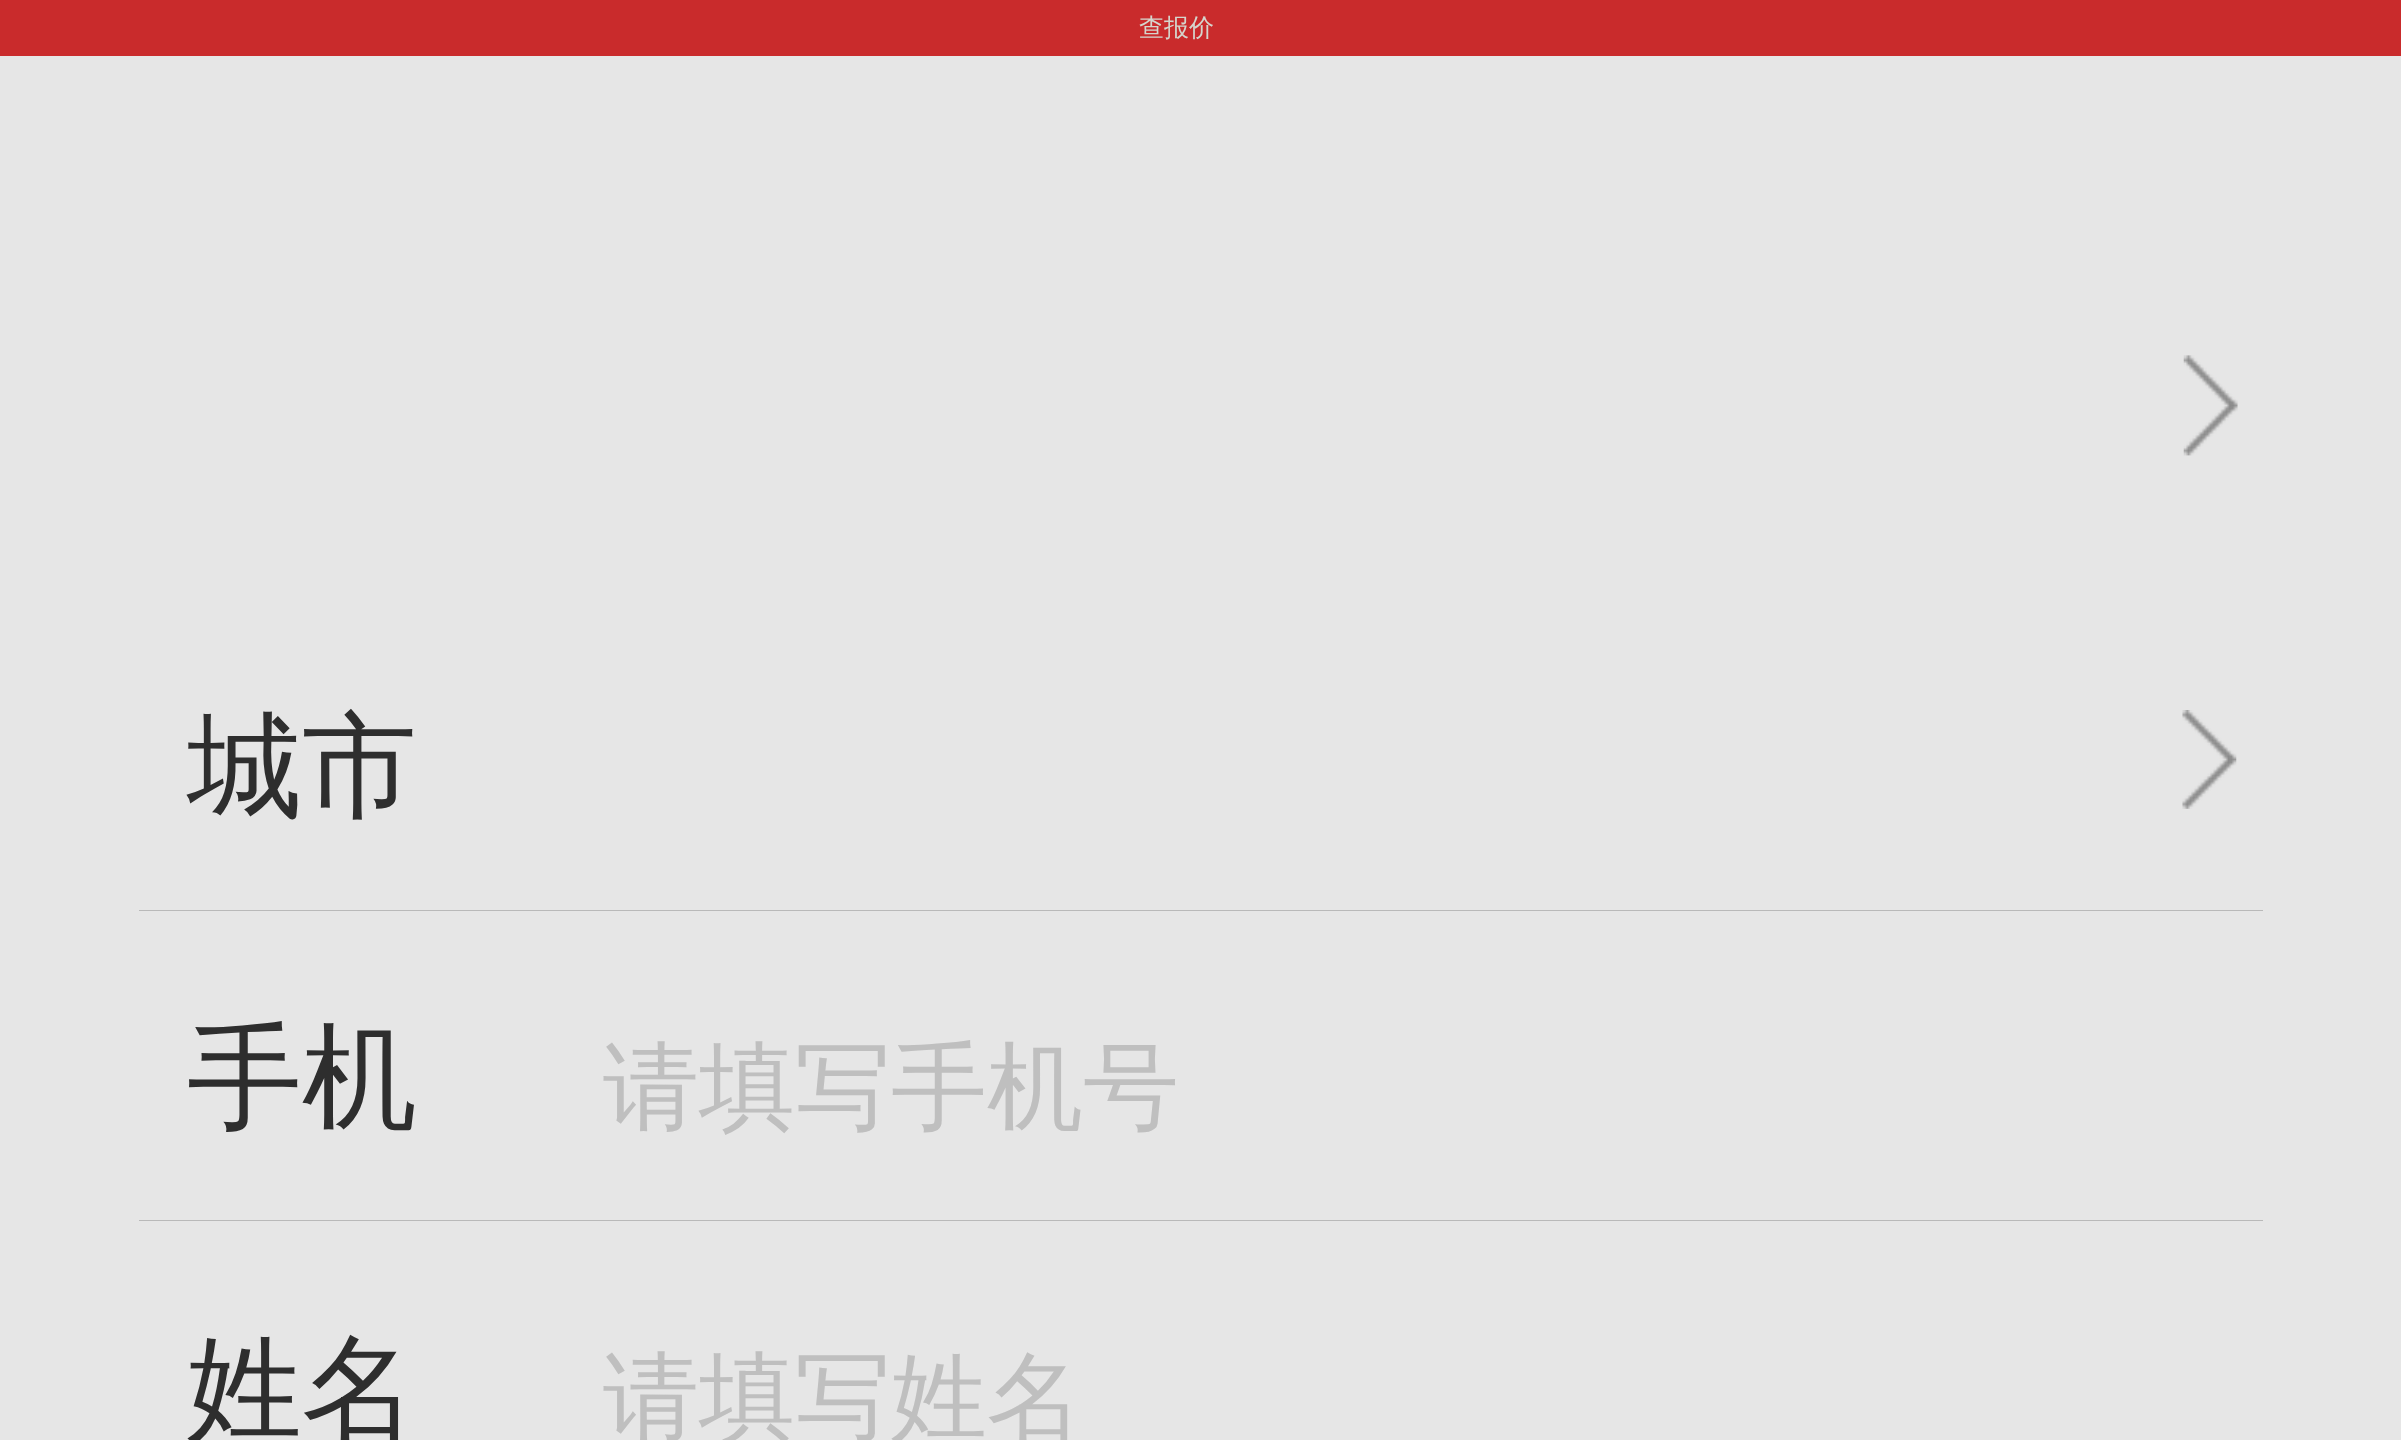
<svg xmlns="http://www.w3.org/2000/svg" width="2401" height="1440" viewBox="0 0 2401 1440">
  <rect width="100%" height="100%" fill="#e6e6e6"/>
  <rect x="0" y="0" width="2401" height="56" fill="#c92b2c"/>
  <text x="1139" y="36" font-family="WenQuanYi Zen Hei" font-size="25" font-weight="500" fill="#d5d5cd">查报价</text>
  <image x="2183" y="355" width="55" height="101" href="img1.png"/>
  <text x="187" y="806" font-family="WenQuanYi Zen Hei" font-size="115" font-weight="500" fill="#2e2e2e">城市</text>
  <image x="2182" y="710" width="55" height="99" href="img2.png"/>
  <rect x="139" y="910" width="2124" height="1" fill="#b9b9b9"/>
  <text x="187" y="1117" font-family="WenQuanYi Zen Hei" font-size="115" font-weight="500" fill="#2e2e2e">手机</text>
  <text x="603" y="1120" font-family="WenQuanYi Zen Hei" font-size="96" font-weight="500" fill="#bfbfbf">请填写手机号</text>
  <rect x="139" y="1220" width="2124" height="1" fill="#b9b9b9"/>
  <text x="187" y="1428" font-family="WenQuanYi Zen Hei" font-size="115" font-weight="500" fill="#2e2e2e">姓名</text>
  <text x="603" y="1430" font-family="WenQuanYi Zen Hei" font-size="96" font-weight="500" fill="#bfbfbf">请填写姓名</text>
</svg>
